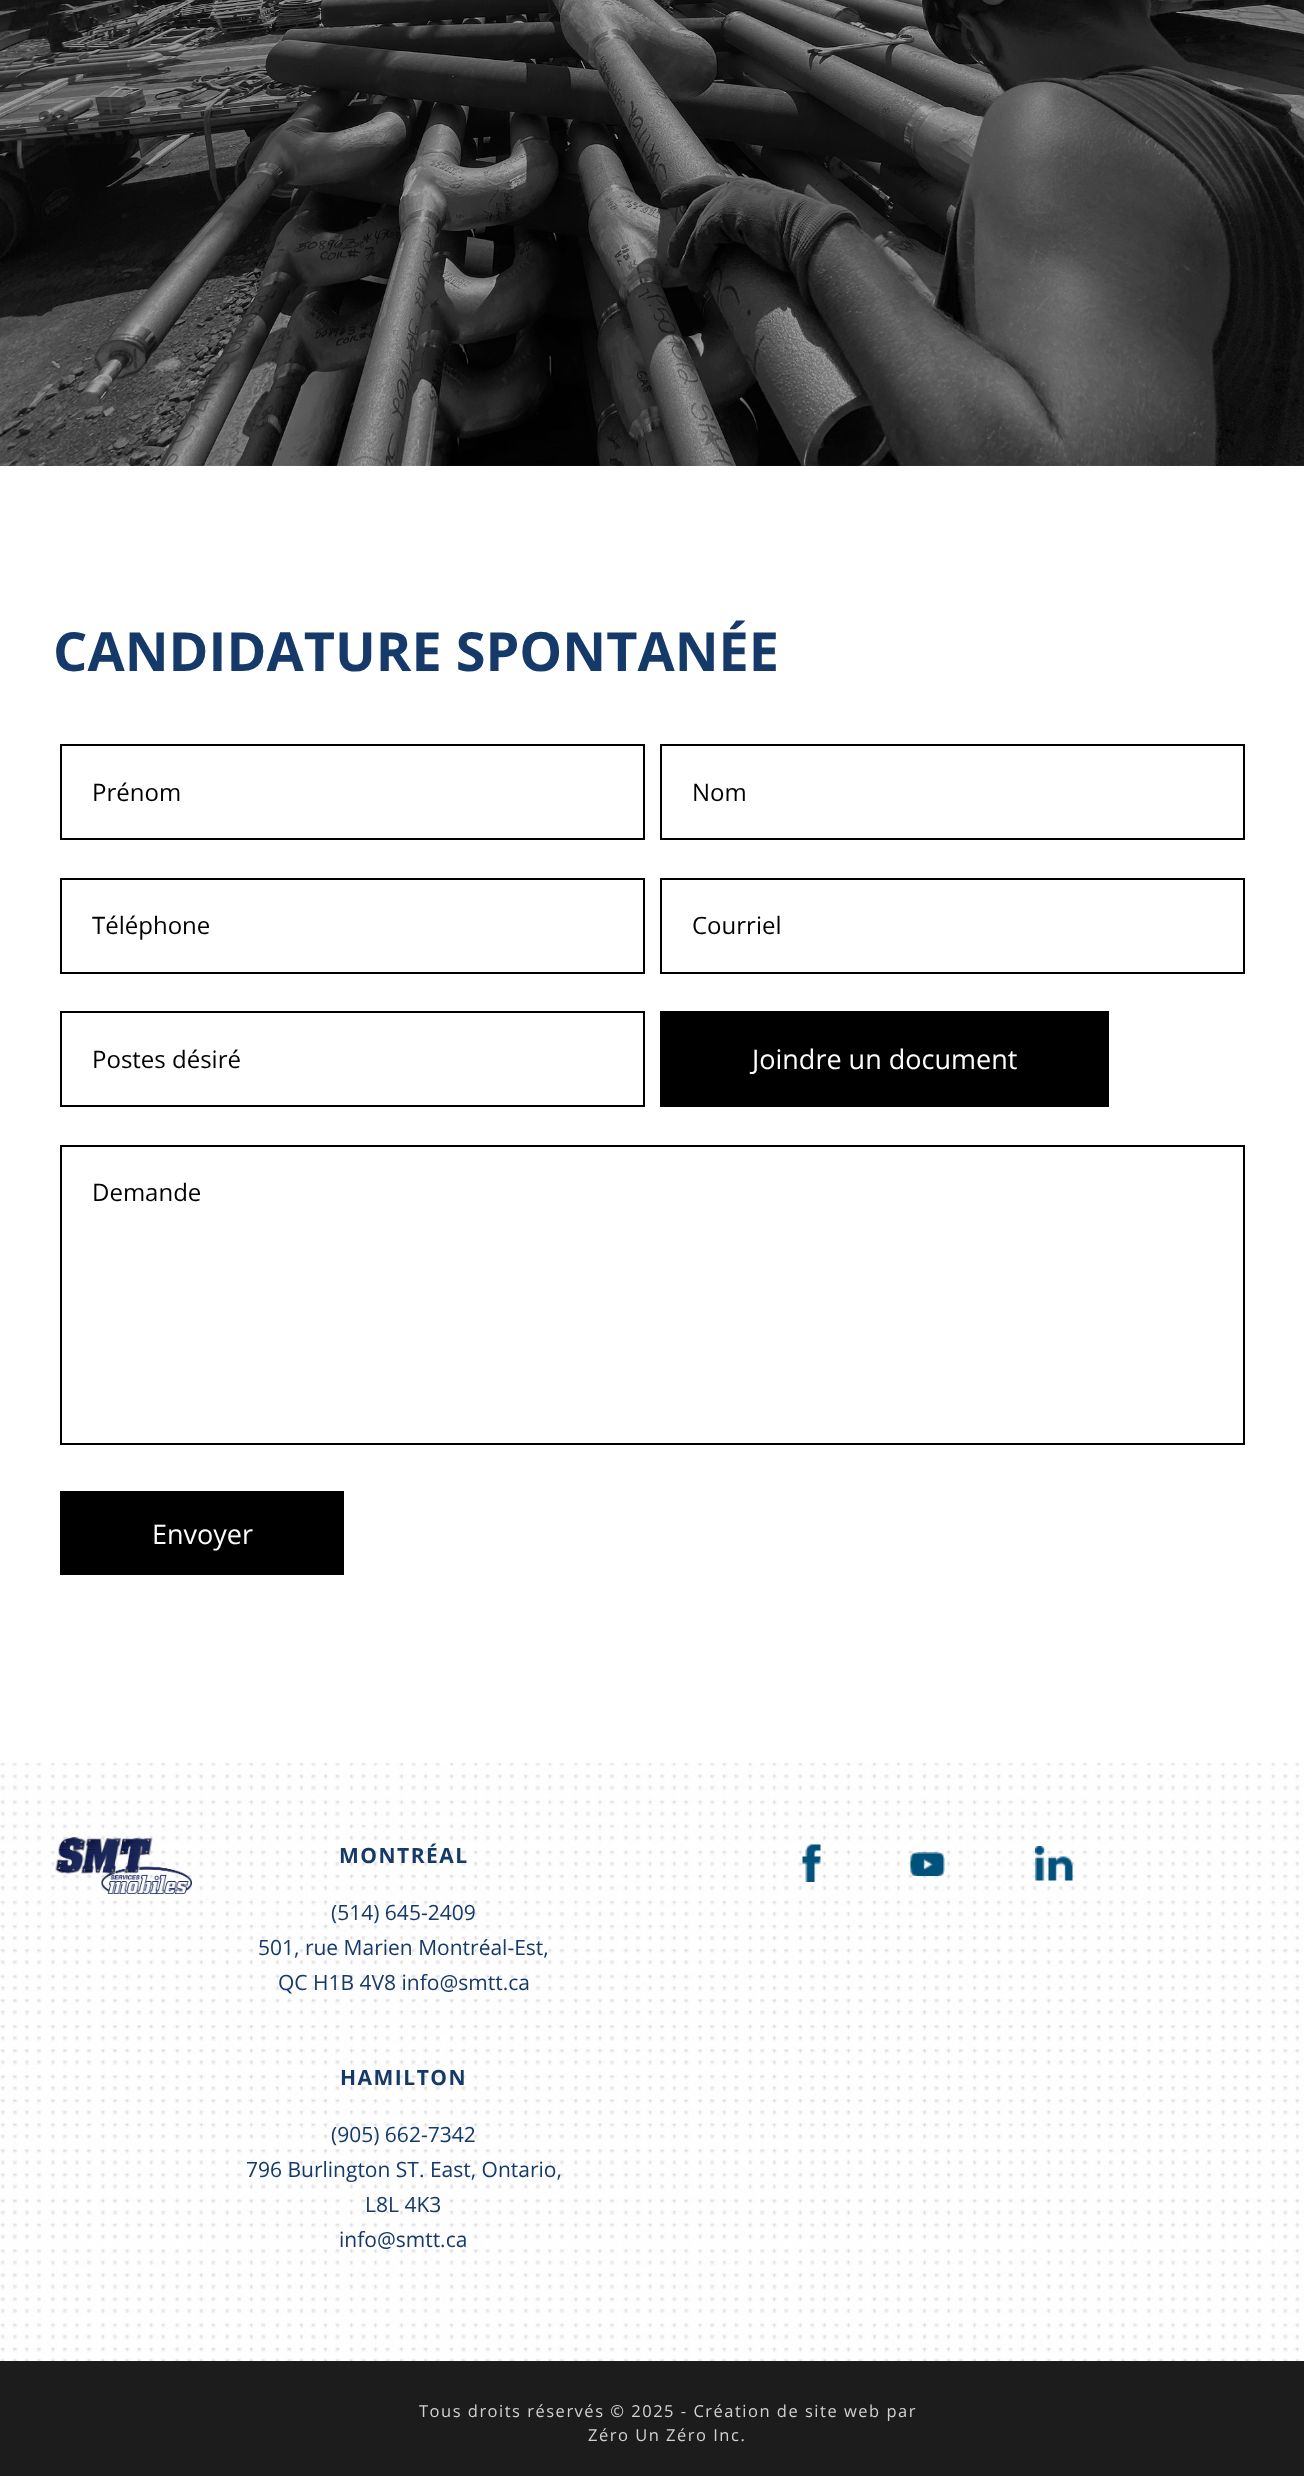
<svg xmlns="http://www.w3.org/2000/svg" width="1304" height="2476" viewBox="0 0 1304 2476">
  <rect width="100%" height="100%" fill="#ffffff"/>
  <image x="0" y="0" width="1304" height="466" href="img1.png"/>
  <text x="53" y="671" font-family="Open Sans" font-size="54" font-weight="bold" fill="#153a69">CANDIDATURE SPONTANÉE</text>
  <rect x="61" y="745" width="583" height="94" fill="none" stroke="#000000" stroke-width="2"/>
  <text x="92" y="801" font-family="Open Sans" font-size="24" fill="#000000">Prénom</text>
  <rect x="661" y="745" width="583" height="94" fill="none" stroke="#000000" stroke-width="2"/>
  <text x="692" y="801" font-family="Open Sans" font-size="24" fill="#000000">Nom</text>
  <rect x="61" y="879" width="583" height="94" fill="none" stroke="#000000" stroke-width="2"/>
  <text x="92" y="934" font-family="Open Sans" font-size="24" fill="#000000">Téléphone</text>
  <rect x="661" y="879" width="583" height="94" fill="none" stroke="#000000" stroke-width="2"/>
  <text x="692" y="934" font-family="Open Sans" font-size="24" fill="#000000">Courriel</text>
  <rect x="61" y="1012" width="583" height="94" fill="none" stroke="#000000" stroke-width="2"/>
  <text x="92" y="1068" font-family="Open Sans" font-size="24" fill="#000000">Postes désiré</text>
  <rect x="660" y="1011" width="449" height="96" fill="#000000"/>
  <text x="752" y="1069" font-family="Open Sans" font-size="27" fill="#ffffff">Joindre un document</text>
  <rect x="61" y="1146" width="1183" height="298" fill="none" stroke="#000000" stroke-width="2"/>
  <text x="92" y="1201" font-family="Open Sans" font-size="24" fill="#000000">Demande</text>
  <rect x="60" y="1491" width="284" height="84" fill="#000000"/>
  <text x="152" y="1544" font-family="Open Sans" font-size="27" fill="#ffffff">Envoyer</text>
  <image x="0" y="1763" width="1304" height="598" href="img2.png"/>
  <image x="55" y="1837" width="137" height="57" href="img3.png"/>
  <text x="339" y="1863" font-family="Open Sans" font-size="21" font-weight="bold" letter-spacing="1.5" fill="#153a69">MONTRÉAL</text>
  <text x="331" y="1920" font-family="Open Sans" font-size="21" fill="#153a69">(514) 645-2409</text>
  <text x="258" y="1955" font-family="Open Sans" font-size="21" fill="#153a69">501, rue Marien Montréal-Est,</text>
  <text x="278" y="1990" font-family="Open Sans" font-size="21" fill="#153a69">QC H1B 4V8 info@smtt.ca</text>
  <text x="340" y="2085" font-family="Open Sans" font-size="21" font-weight="bold" letter-spacing="1.5" fill="#153a69">HAMILTON</text>
  <text x="331" y="2142" font-family="Open Sans" font-size="21" fill="#153a69">(905) 662-7342</text>
  <text x="246" y="2177" font-family="Open Sans" font-size="21" fill="#153a69">796 Burlington ST. East, Ontario,</text>
  <text x="365" y="2212" font-family="Open Sans" font-size="21" fill="#153a69">L8L 4K3</text>
  <text x="339" y="2247" font-family="Open Sans" font-size="21" fill="#153a69">info@smtt.ca</text>
  <image x="802" y="1844" width="19" height="38" href="img4.png"/>
  <image x="910" y="1852" width="35" height="24" href="img5.png"/>
  <image x="1035" y="1846" width="38" height="35" href="img6.png"/>
  <rect x="0" y="2361" width="1304" height="115" fill="#1c1c1c"/>
  <text x="419" y="2417" font-family="Open Sans" font-size="16.5" letter-spacing="1.5" fill="#d2d2d2">Tous droits réservés © 2025 - Création de site web par</text>
  <text x="588" y="2441" font-family="Open Sans" font-size="16.5" letter-spacing="1.5" fill="#d2d2d2">Zéro Un Zéro Inc.</text>
</svg>
